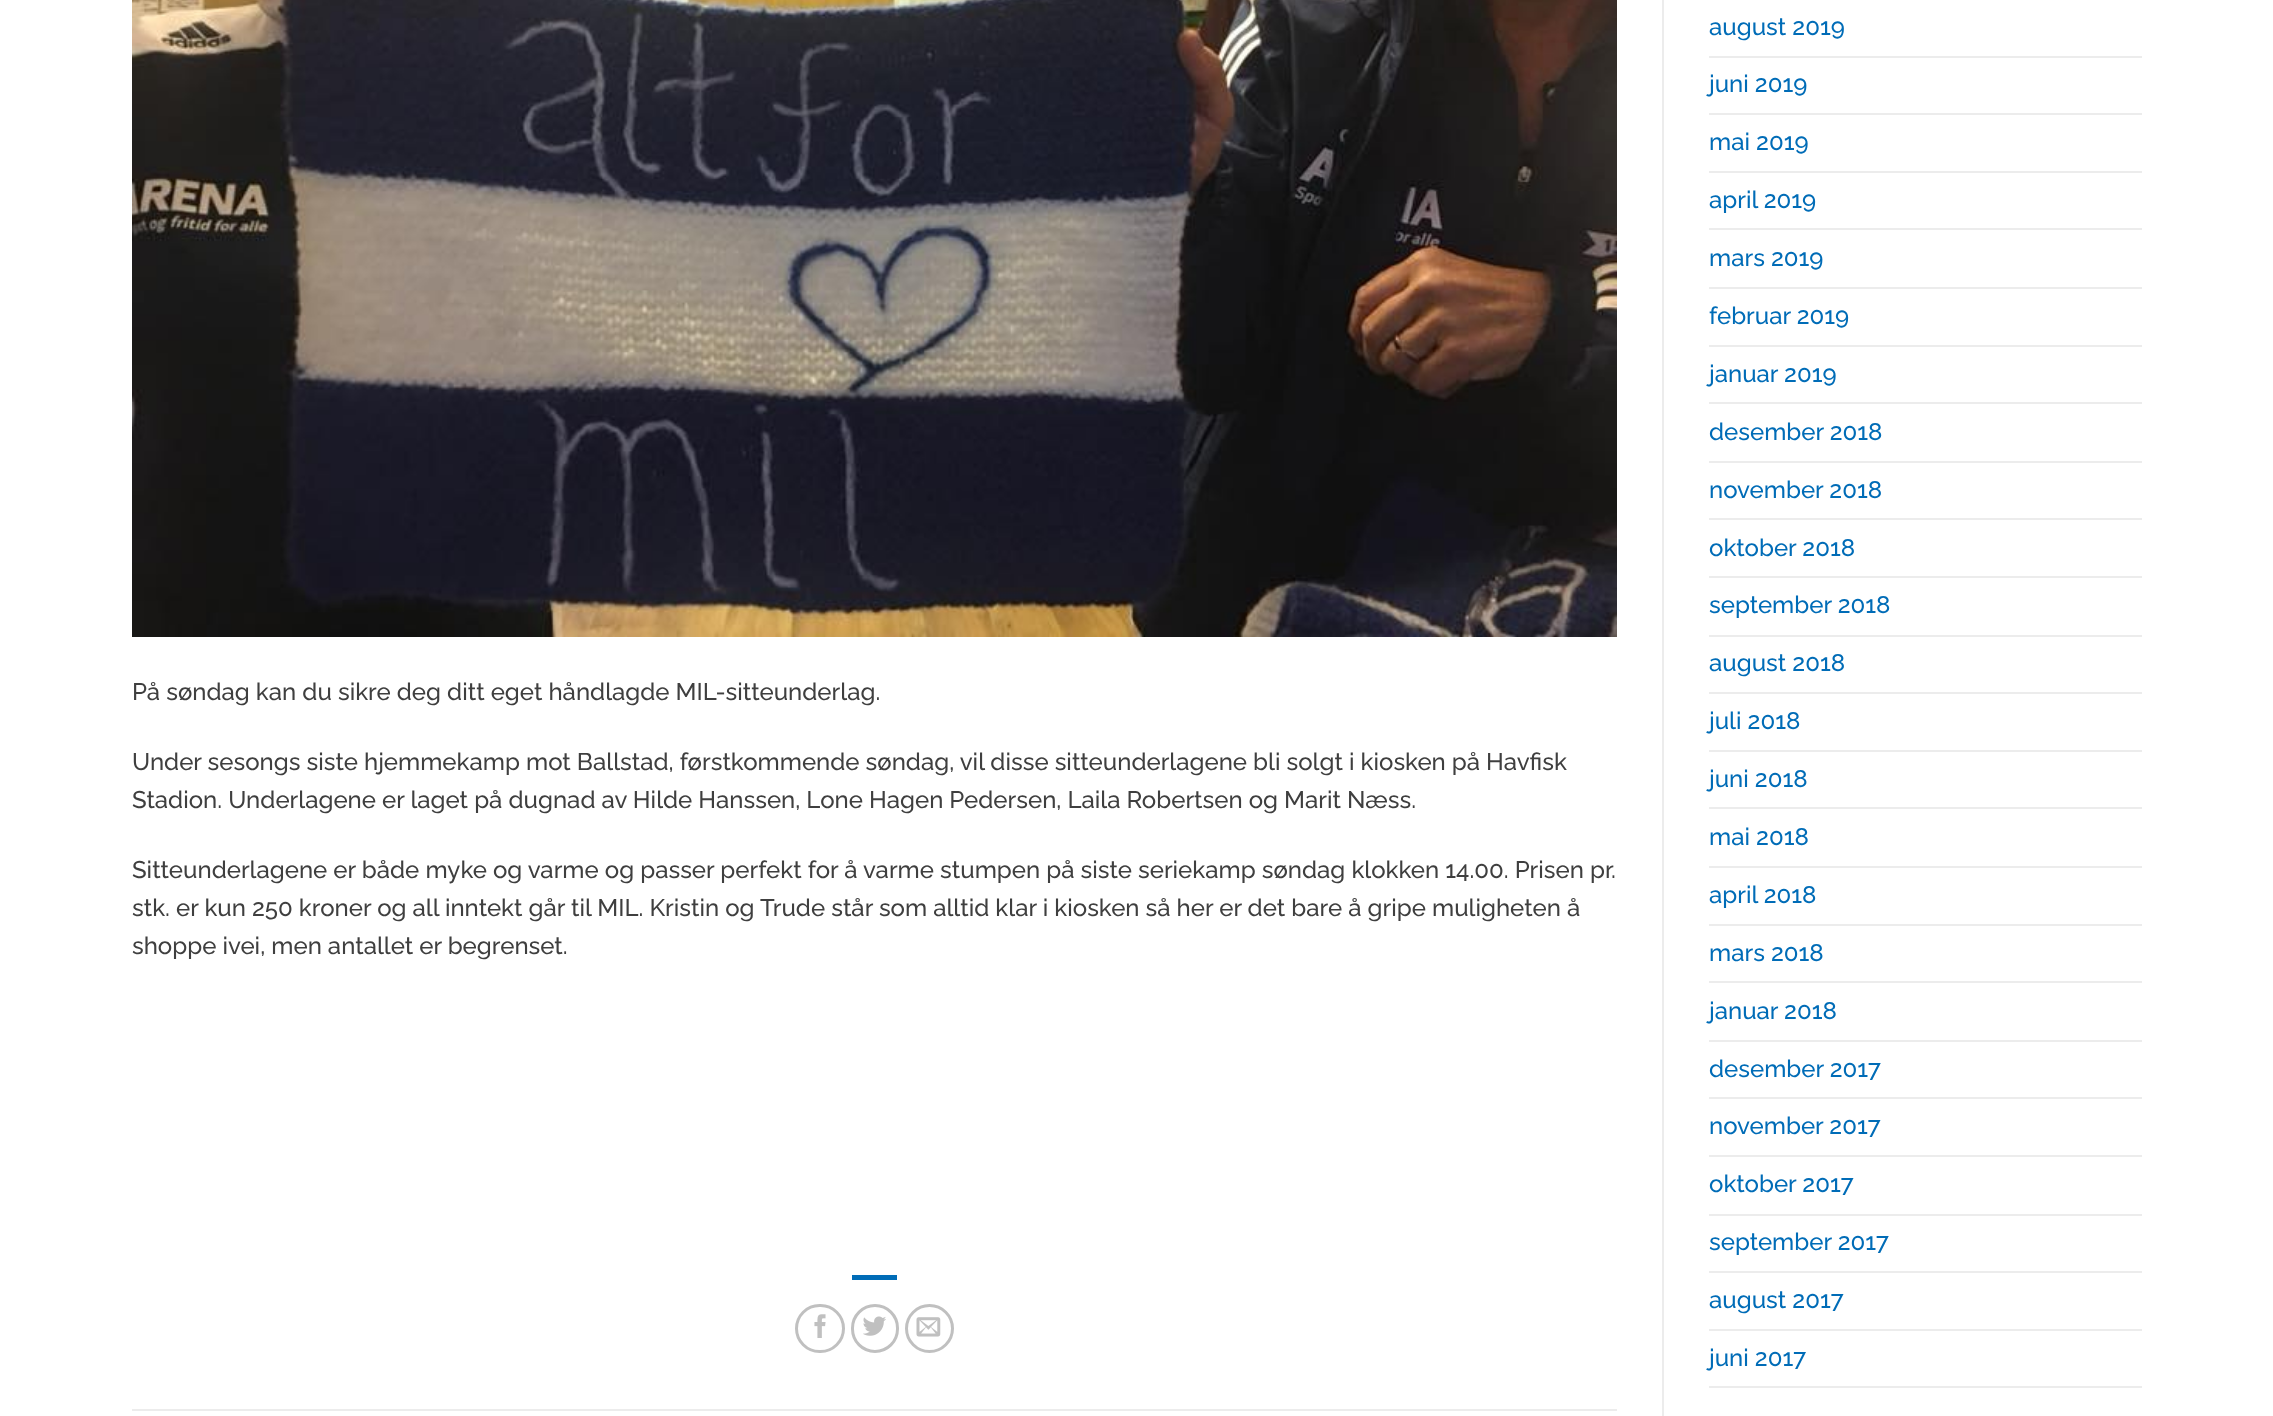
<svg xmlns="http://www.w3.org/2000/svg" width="2273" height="1416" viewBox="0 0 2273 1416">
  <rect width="100%" height="100%" fill="#ffffff"/>
  <image x="132" y="0" width="1485" height="637" href="img1.png"/>
  <text x="132" y="700" font-family="Raleway" font-size="24" font-weight="500" fill="#3f3f3f">På søndag kan du sikre deg ditt eget håndlagde MIL-sitteunderlag.</text>
  <text x="132" y="770" font-family="Raleway" font-size="24" font-weight="500" fill="#3f3f3f">Under sesongs siste hjemmekamp mot Ballstad, førstkommende søndag, vil disse sitteunderlagene bli solgt i kiosken på Havfisk</text>
  <text x="132" y="808" font-family="Raleway" font-size="24" font-weight="500" fill="#3f3f3f">Stadion. Underlagene er laget på dugnad av Hilde Hanssen, Lone Hagen Pedersen, Laila Robertsen og Marit Næss.</text>
  <text x="132" y="878" font-family="Raleway" font-size="24" font-weight="500" fill="#3f3f3f">Sitteunderlagene er både myke og varme og passer perfekt for å varme stumpen på siste seriekamp søndag klokken 14.00. Prisen pr.</text>
  <text x="132" y="916" font-family="Raleway" font-size="24" font-weight="500" fill="#3f3f3f">stk. er kun 250 kroner og all inntekt går til MIL. Kristin og Trude står som alltid klar i kiosken så her er det bare å gripe muligheten å</text>
  <text x="132" y="954" font-family="Raleway" font-size="24" font-weight="500" fill="#3f3f3f">shoppe ivei, men antallet er begrenset.</text>
  <rect x="852" y="1275" width="45" height="5" fill="#006cb7"/>
  <rect x="796.5" y="1305.5" width="47" height="46" rx="23" fill="none" stroke="#c0c0c0" stroke-width="3"/>
  <image x="814" y="1314" width="12" height="24" href="img2.png"/>
  <rect x="852.5" y="1305.5" width="45" height="46" rx="22.5" fill="none" stroke="#c0c0c0" stroke-width="3"/>
  <image x="863" y="1316" width="23" height="20" href="img3.png"/>
  <circle cx="929.5" cy="1328.5" r="23" fill="none" stroke="#c0c0c0" stroke-width="3"/>
  <image x="916" y="1317" width="25" height="20" href="img4.png"/>
  <rect x="132" y="1409" width="1485" height="2" fill="#ececec"/>
  <rect x="1662" y="0" width="2" height="1416" fill="#ececec"/>
  <text x="1709" y="35" font-family="Raleway" font-size="24" font-weight="500" fill="#006cb7">august 2019</text>
  <rect x="1709" y="56" width="433" height="2" fill="#ececec"/>
  <text x="1709" y="92" font-family="Raleway" font-size="24" font-weight="500" fill="#006cb7">juni 2019</text>
  <rect x="1709" y="113" width="433" height="2" fill="#ececec"/>
  <text x="1709" y="150" font-family="Raleway" font-size="24" font-weight="500" fill="#006cb7">mai 2019</text>
  <rect x="1709" y="171" width="433" height="2" fill="#ececec"/>
  <text x="1709" y="208" font-family="Raleway" font-size="24" font-weight="500" fill="#006cb7">april 2019</text>
  <rect x="1709" y="228" width="433" height="2" fill="#ececec"/>
  <text x="1709" y="266" font-family="Raleway" font-size="24" font-weight="500" fill="#006cb7">mars 2019</text>
  <rect x="1709" y="287" width="433" height="2" fill="#ececec"/>
  <text x="1709" y="324" font-family="Raleway" font-size="24" font-weight="500" fill="#006cb7">februar 2019</text>
  <rect x="1709" y="345" width="433" height="2" fill="#ececec"/>
  <text x="1709" y="382" font-family="Raleway" font-size="24" font-weight="500" fill="#006cb7">januar 2019</text>
  <rect x="1709" y="402" width="433" height="2" fill="#ececec"/>
  <text x="1709" y="440" font-family="Raleway" font-size="24" font-weight="500" fill="#006cb7">desember 2018</text>
  <rect x="1709" y="461" width="433" height="2" fill="#ececec"/>
  <text x="1709" y="498" font-family="Raleway" font-size="24" font-weight="500" fill="#006cb7">november 2018</text>
  <rect x="1709" y="518" width="433" height="2" fill="#ececec"/>
  <text x="1709" y="556" font-family="Raleway" font-size="24" font-weight="500" fill="#006cb7">oktober 2018</text>
  <rect x="1709" y="576" width="433" height="2" fill="#ececec"/>
  <text x="1709" y="613" font-family="Raleway" font-size="24" font-weight="500" fill="#006cb7">september 2018</text>
  <rect x="1709" y="635" width="433" height="2" fill="#ececec"/>
  <text x="1709" y="671" font-family="Raleway" font-size="24" font-weight="500" fill="#006cb7">august 2018</text>
  <rect x="1709" y="692" width="433" height="2" fill="#ececec"/>
  <text x="1709" y="729" font-family="Raleway" font-size="24" font-weight="500" fill="#006cb7">juli 2018</text>
  <rect x="1709" y="750" width="433" height="2" fill="#ececec"/>
  <text x="1709" y="787" font-family="Raleway" font-size="24" font-weight="500" fill="#006cb7">juni 2018</text>
  <rect x="1709" y="807" width="433" height="2" fill="#ececec"/>
  <text x="1709" y="845" font-family="Raleway" font-size="24" font-weight="500" fill="#006cb7">mai 2018</text>
  <rect x="1709" y="866" width="433" height="2" fill="#ececec"/>
  <text x="1709" y="903" font-family="Raleway" font-size="24" font-weight="500" fill="#006cb7">april 2018</text>
  <rect x="1709" y="924" width="433" height="2" fill="#ececec"/>
  <text x="1709" y="961" font-family="Raleway" font-size="24" font-weight="500" fill="#006cb7">mars 2018</text>
  <rect x="1709" y="981" width="433" height="2" fill="#ececec"/>
  <text x="1709" y="1019" font-family="Raleway" font-size="24" font-weight="500" fill="#006cb7">januar 2018</text>
  <rect x="1709" y="1040" width="433" height="2" fill="#ececec"/>
  <text x="1709" y="1077" font-family="Raleway" font-size="24" font-weight="500" fill="#006cb7">desember 2017</text>
  <rect x="1709" y="1097" width="433" height="2" fill="#ececec"/>
  <text x="1709" y="1134" font-family="Raleway" font-size="24" font-weight="500" fill="#006cb7">november 2017</text>
  <rect x="1709" y="1155" width="433" height="2" fill="#ececec"/>
  <text x="1709" y="1192" font-family="Raleway" font-size="24" font-weight="500" fill="#006cb7">oktober 2017</text>
  <rect x="1709" y="1214" width="433" height="2" fill="#ececec"/>
  <text x="1709" y="1250" font-family="Raleway" font-size="24" font-weight="500" fill="#006cb7">september 2017</text>
  <rect x="1709" y="1271" width="433" height="2" fill="#ececec"/>
  <text x="1709" y="1308" font-family="Raleway" font-size="24" font-weight="500" fill="#006cb7">august 2017</text>
  <rect x="1709" y="1329" width="433" height="2" fill="#ececec"/>
  <text x="1709" y="1366" font-family="Raleway" font-size="24" font-weight="500" fill="#006cb7">juni 2017</text>
  <rect x="1709" y="1386" width="433" height="2" fill="#ececec"/>
</svg>
